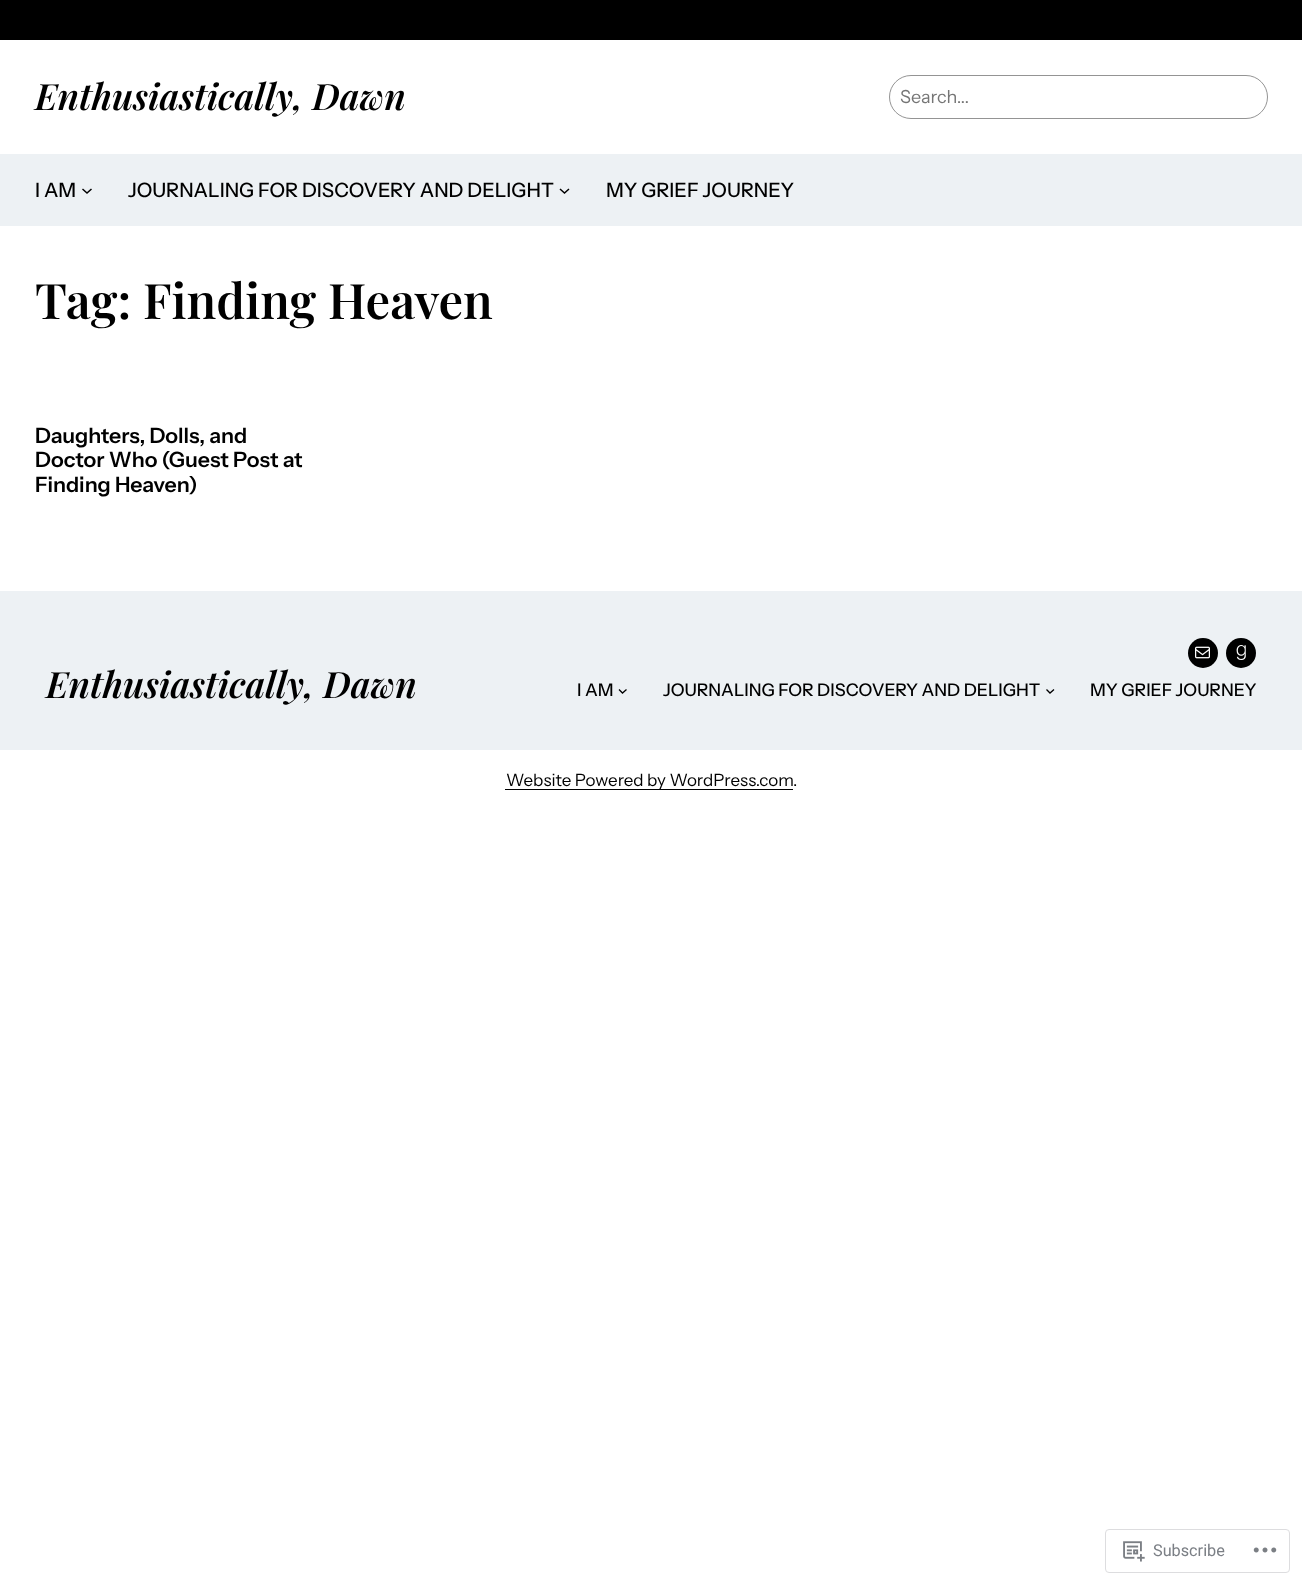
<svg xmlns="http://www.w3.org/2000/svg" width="1302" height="1584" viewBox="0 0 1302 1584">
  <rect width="100%" height="100%" fill="#ffffff"/>
  <rect x="0" y="0" width="1302" height="40" fill="#000000"/>
  <text x="35" y="110" font-family="Playfair Display" font-size="36.25" font-weight="600" font-style="italic" fill="#000000">Enthusiastically, Dawn</text>
  <rect x="889.5" y="75.5" width="378" height="43" rx="21.5" fill="none" stroke="#949494"/>
  <text x="900" y="103" font-family="Instrument Sans" font-size="18" fill="#757575">Search...</text>
  <rect x="0" y="154" width="1302" height="72" fill="#edf1f4"/>
  <text x="35" y="197" font-family="Instrument Sans" font-size="19.75" font-weight="500" fill="#000000">I AM</text>
  <path d="M82.5 189L87 193L91.5 189" fill="none" stroke="#000000" stroke-width="1.5"/>
  <text x="128" y="197" font-family="Instrument Sans" font-size="19.75" font-weight="500" fill="#000000">JOURNALING FOR DISCOVERY AND DELIGHT</text>
  <path d="M560 189L564.5 193L569 189" fill="none" stroke="#000000" stroke-width="1.5"/>
  <text x="606" y="197" font-family="Instrument Sans" font-size="19.75" font-weight="500" fill="#000000">MY GRIEF JOURNEY</text>
  <text x="35" y="319" font-family="Playfair Display" font-size="48.9" font-weight="600" fill="#000000">Tag: Finding Heaven</text>
  <text x="35" y="443" font-family="Instrument Sans" font-size="21.25" font-weight="600" fill="#000000">Daughters, Dolls, and</text>
  <text x="35" y="467" font-family="Instrument Sans" font-size="21.25" font-weight="600" fill="#000000">Doctor Who (Guest Post at</text>
  <text x="35" y="492" font-family="Instrument Sans" font-size="21.25" font-weight="600" fill="#000000">Finding Heaven)</text>
  <rect x="0" y="591" width="1302" height="159" fill="#edf1f4"/>
  <text x="46" y="698" font-family="Playfair Display" font-size="36.25" font-weight="600" font-style="italic" fill="#000000">Enthusiastically, Dawn</text>
  <circle cx="1203" cy="653" r="15" fill="#000000"/>
  <image x="1195" y="646" width="15" height="13" href="img1.png"/>
  <circle cx="1241" cy="653" r="15" fill="#000000"/>
  <image x="1236" y="645" width="10" height="15" href="img2.png"/>
  <text x="577" y="696" font-family="Instrument Sans" font-size="17.5" font-weight="500" fill="#000000">I AM</text>
  <path d="M619 689.5L622.5 693L626.5 689.5" fill="none" stroke="#000000" stroke-width="1.3"/>
  <text x="663" y="696" font-family="Instrument Sans" font-size="17.5" font-weight="500" fill="#000000">JOURNALING FOR DISCOVERY AND DELIGHT</text>
  <path d="M1046.5 689.5L1050 693L1054 689.5" fill="none" stroke="#000000" stroke-width="1.3"/>
  <text x="1090" y="696" font-family="Instrument Sans" font-size="17.5" font-weight="500" fill="#000000">MY GRIEF JOURNEY</text>
  <rect x="505" y="789" width="288" height="1" fill="#000000"/>
  <text x="506" y="786" font-family="Instrument Sans" font-size="17" fill="#000000">Website Powered by WordPress.com</text>
  <text x="793" y="786" font-family="Instrument Sans" font-size="17" fill="#000000">.</text>
  <rect x="1105.5" y="1529.5" width="184" height="43" rx="3.5" fill="none" stroke="#dddddf"/>
  <image x="1123" y="1541" width="22" height="21" href="img3.png"/>
  <text x="1153" y="1556" font-family="Roboto" font-size="16.25" fill="#7b7f85">Subscribe</text>
  <image x="1253" y="1547" width="24" height="6" href="img4.png"/>
</svg>
